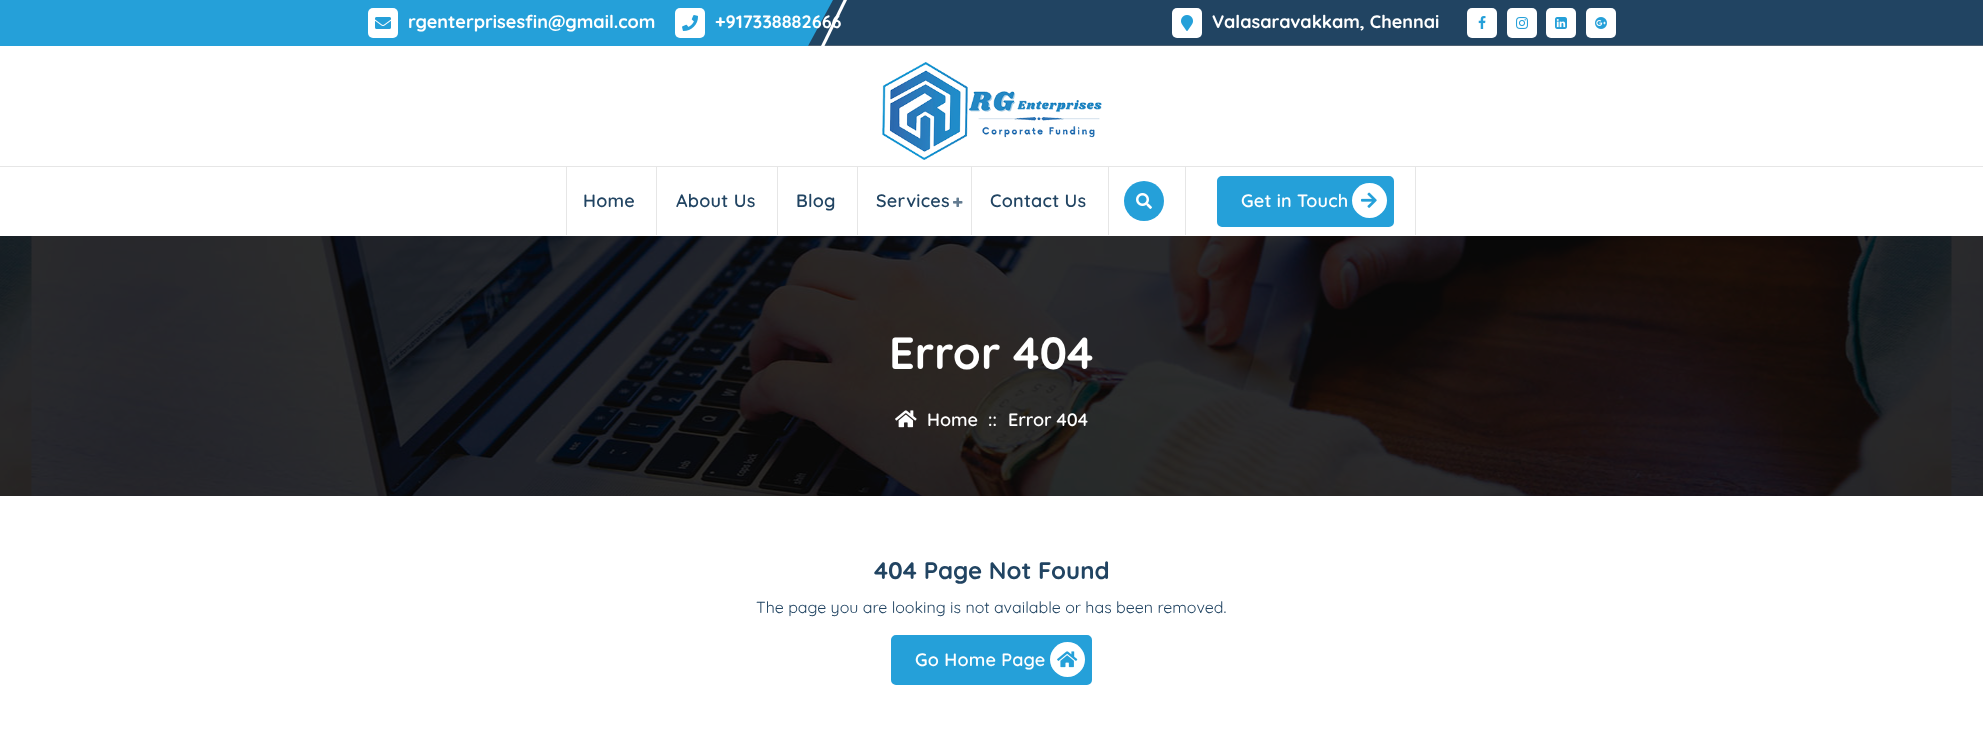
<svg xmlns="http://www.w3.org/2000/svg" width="1983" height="737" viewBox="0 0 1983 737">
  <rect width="100%" height="100%" fill="#ffffff"/>
  <rect x="808" y="0" width="1175" height="45" fill="#214462"/>
  <rect x="808" y="45" width="1175" height="1" fill="#4e6172"/>
  <path d="M0 0V46H808L833 0Z" fill="#25a0d9"/>
  <path d="M845-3L848-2L824 47L821 46Z" fill="#ffffff"/>
  <rect x="368" y="8" width="30" height="30" rx="5" fill="#ffffff"/>
  <image x="375" y="17" width="16" height="12" href="img1.png"/>
  <text x="408" y="28" font-family="Quicksand" font-size="18" font-weight="bold" fill="#ffffff">rgenterprisesfin@gmail.com</text>
  <rect x="675" y="8" width="30" height="30" rx="5" fill="#ffffff"/>
  <image x="682" y="15" width="16" height="16" href="img2.png"/>
  <text x="715" y="28" font-family="Quicksand" font-size="18" font-weight="bold" fill="#ffffff">+917338882666</text>
  <rect x="1172" y="8" width="30" height="30" rx="5" fill="#ffffff"/>
  <image x="1181" y="15" width="12" height="16" href="img3.png"/>
  <text x="1212" y="28" font-family="Quicksand" font-size="18" font-weight="bold" fill="#ffffff">Valasaravakkam, Chennai</text>
  <rect x="1467" y="8" width="30" height="30" rx="5" fill="#ffffff"/>
  <image x="1478" y="16" width="8" height="13" href="img4.png"/>
  <rect x="1507" y="8" width="30" height="30" rx="5" fill="#ffffff"/>
  <image x="1516" y="17" width="12" height="12" href="img5.png"/>
  <rect x="1546" y="8" width="30" height="30" rx="5" fill="#ffffff"/>
  <image x="1555" y="17" width="12" height="12" href="img6.png"/>
  <rect x="1586" y="8" width="30" height="30" rx="5" fill="#ffffff"/>
  <image x="1595" y="17" width="12" height="12" href="img7.png"/>
  <image x="882" y="62" width="220" height="98" href="img8.png"/>
  <rect x="0" y="166" width="1983" height="1" fill="#e6e6e6"/>
  <rect x="656" y="167" width="1" height="68" fill="#e6e6e6"/>
  <rect x="566" y="167" width="1" height="68" fill="#e6e6e6"/>
  <text x="583" y="207" font-family="Quicksand" font-size="18" font-weight="600" letter-spacing="0.25" fill="#214462">Home</text>
  <rect x="777" y="167" width="1" height="68" fill="#e6e6e6"/>
  <text x="676" y="207" font-family="Quicksand" font-size="18" font-weight="600" letter-spacing="0.25" fill="#214462">About Us</text>
  <rect x="857" y="167" width="1" height="68" fill="#e6e6e6"/>
  <text x="796" y="207" font-family="Quicksand" font-size="18" font-weight="600" letter-spacing="0.25" fill="#214462">Blog</text>
  <rect x="971" y="167" width="1" height="68" fill="#e6e6e6"/>
  <text x="876" y="207" font-family="Quicksand" font-size="18" font-weight="600" letter-spacing="0.25" fill="#214462">Services</text>
  <image x="953" y="197" width="10" height="10" href="img9.png"/>
  <rect x="1108" y="167" width="1" height="68" fill="#e6e6e6"/>
  <text x="990" y="207" font-family="Quicksand" font-size="18" font-weight="600" letter-spacing="0.25" fill="#214462">Contact Us</text>
  <rect x="1185" y="167" width="1" height="68" fill="#e6e6e6"/>
  <circle cx="1144" cy="201" r="20" fill="#25a0d9"/>
  <image x="1136" y="193" width="16" height="16" href="img10.png"/>
  <rect x="1415" y="167" width="1" height="68" fill="#e6e6e6"/>
  <rect x="1218" y="177" width="175" height="49" rx="4" fill="#25a0d9" stroke="#25a0d9" stroke-width="2"/>
  <text x="1241" y="207" font-family="Quicksand" font-size="18" font-weight="600" letter-spacing="0.2" fill="#ffffff">Get in Touch</text>
  <circle cx="1369.5" cy="200.5" r="17.5" fill="#ffffff"/>
  <image x="1361" y="192" width="16" height="16" href="img11.png"/>
  <image x="0" y="236" width="1983" height="260" href="img12.png"/>
  <text x="889" y="369" font-family="Quicksand" font-size="45" font-weight="bold" fill="#ffffff">Error 404</text>
  <image x="895" y="410" width="22" height="18" href="img13.png"/>
  <text x="927" y="426" font-family="Quicksand" font-size="18" font-weight="600" fill="#ffffff">Home</text>
  <text x="988" y="426" font-family="Quicksand" font-size="18" font-weight="600" fill="#ffffff">::</text>
  <text x="1008" y="426" font-family="Quicksand" font-size="18" font-weight="600" fill="#ffffff">Error 404</text>
  <text x="874" y="579" font-family="Quicksand" font-size="24" font-weight="bold" fill="#214462">404 Page Not Found</text>
  <text x="756" y="613" font-family="Quicksand" font-size="16" fill="#214462">The page you are looking is not available or has been removed.</text>
  <rect x="892" y="636" width="199" height="48" rx="4" fill="#25a0d9" stroke="#25a0d9" stroke-width="2"/>
  <text x="915" y="666" font-family="Quicksand" font-size="18" font-weight="600" letter-spacing="0.2" fill="#ffffff">Go Home Page</text>
  <circle cx="1067.5" cy="659.5" r="17.5" fill="#ffffff"/>
  <image x="1057" y="651" width="21" height="17" href="img14.png"/>
</svg>
